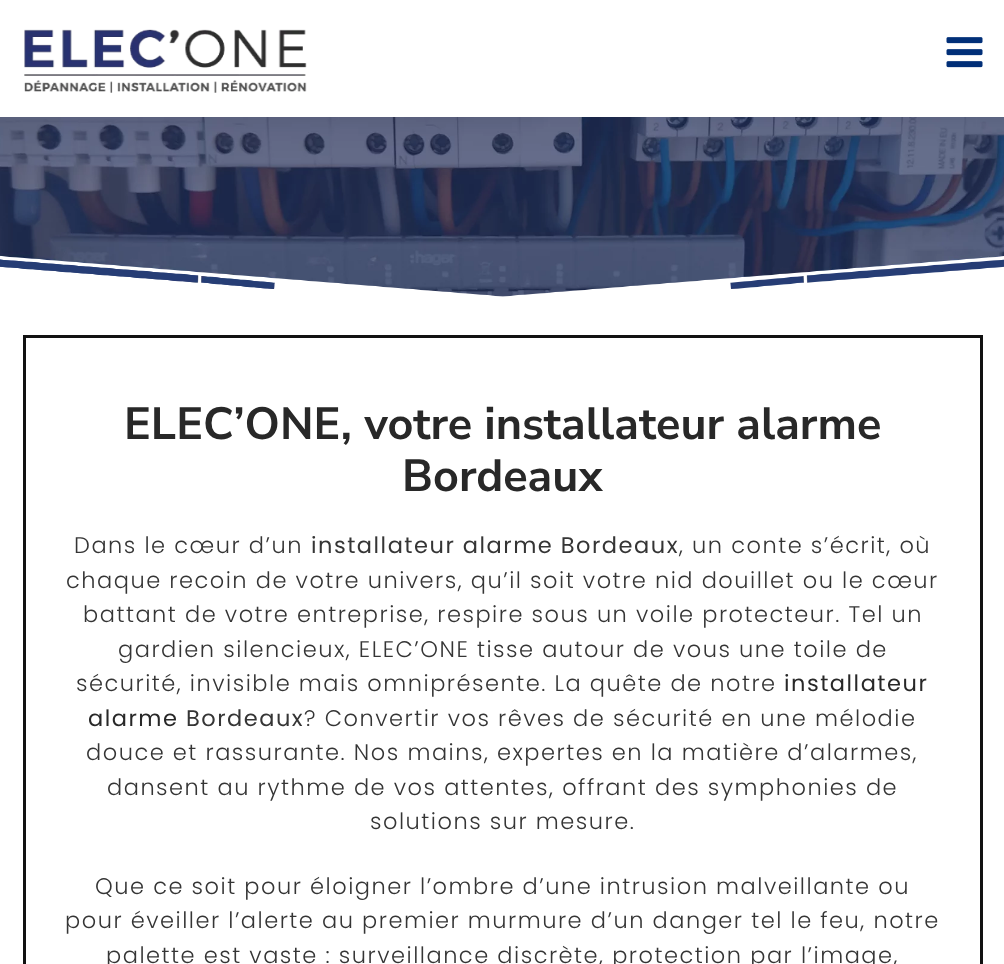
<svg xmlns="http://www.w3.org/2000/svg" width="1004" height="964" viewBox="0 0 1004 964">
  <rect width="100%" height="100%" fill="#ffffff"/>
  <image x="24" y="29" width="283" height="64" href="img1.png"/>
  <image x="946" y="37" width="37" height="31" href="img2.png"/>
  <image x="0" y="117" width="1004" height="180" href="img3.png"/>
  <rect x="24.5" y="336.5" width="957" height="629" fill="none" stroke="#111111" stroke-width="3"/>
  <text x="124" y="439" font-family="Nunito Sans" font-size="45" font-weight="bold" fill="#282828">ELEC’ONE, votre installateur alarme</text>
  <text x="402" y="491" font-family="Nunito Sans" font-size="45" font-weight="bold" fill="#282828">Bordeaux</text>
  <text x="74" y="553" font-family="Poppins" font-size="22.5" font-weight="300" letter-spacing="1.5" fill="#353535">Dans le cœur d’un</text>
  <text x="311" y="553" font-family="Poppins" font-size="22.5" letter-spacing="1.5" fill="#353535">installateur alarme Bordeaux</text>
  <text x="679" y="553" font-family="Poppins" font-size="22.5" font-weight="300" letter-spacing="1.5" fill="#353535">, un conte s’écrit, où</text>
  <text x="66" y="588" font-family="Poppins" font-size="22.5" font-weight="300" letter-spacing="1.5" fill="#353535">chaque recoin de votre univers, qu’il soit votre nid douillet ou le cœur</text>
  <text x="83" y="622" font-family="Poppins" font-size="22.5" font-weight="300" letter-spacing="1.5" fill="#353535">battant de votre entreprise, respire sous un voile protecteur. Tel un</text>
  <text x="118" y="657" font-family="Poppins" font-size="22.5" font-weight="300" letter-spacing="1.5" fill="#353535">gardien silencieux, ELEC’ONE tisse autour de vous une toile de</text>
  <text x="76" y="691" font-family="Poppins" font-size="22.5" font-weight="300" letter-spacing="1.5" fill="#353535">sécurité, invisible mais omniprésente. La quête de notre</text>
  <text x="784" y="691" font-family="Poppins" font-size="22.5" letter-spacing="1.5" fill="#282828">installateur</text>
  <text x="88" y="726" font-family="Poppins" font-size="22.5" letter-spacing="1.5" fill="#282828">alarme</text>
  <text x="186" y="726" font-family="Poppins" font-size="22.5" letter-spacing="1.5" fill="#353535">Bordeaux</text>
  <text x="304" y="726" font-family="Poppins" font-size="22.5" font-weight="300" letter-spacing="1.5" fill="#353535">? Convertir vos rêves de sécurité en une mélodie</text>
  <text x="86" y="760" font-family="Poppins" font-size="22.5" font-weight="300" letter-spacing="1.5" fill="#353535">douce et rassurante. Nos mains, expertes en la matière d’alarmes,</text>
  <text x="107" y="795" font-family="Poppins" font-size="22.5" font-weight="300" letter-spacing="1.5" fill="#353535">dansent au rythme de vos attentes, offrant des symphonies de</text>
  <text x="370" y="829" font-family="Poppins" font-size="22.5" font-weight="300" letter-spacing="1.5" fill="#353535">solutions sur mesure.</text>
  <text x="95" y="894" font-family="Poppins" font-size="22.5" font-weight="300" letter-spacing="1.5" fill="#353535">Que ce soit pour éloigner l’ombre d’une intrusion malveillante ou</text>
  <text x="65" y="928" font-family="Poppins" font-size="22.5" font-weight="300" letter-spacing="1.5" fill="#353535">pour éveiller l’alerte au premier murmure d’un danger tel le feu, notre</text>
  <text x="106" y="963" font-family="Poppins" font-size="22.5" font-weight="300" letter-spacing="1.5" fill="#353535">palette est vaste : surveillance discrète, protection par l’image,</text>
</svg>
